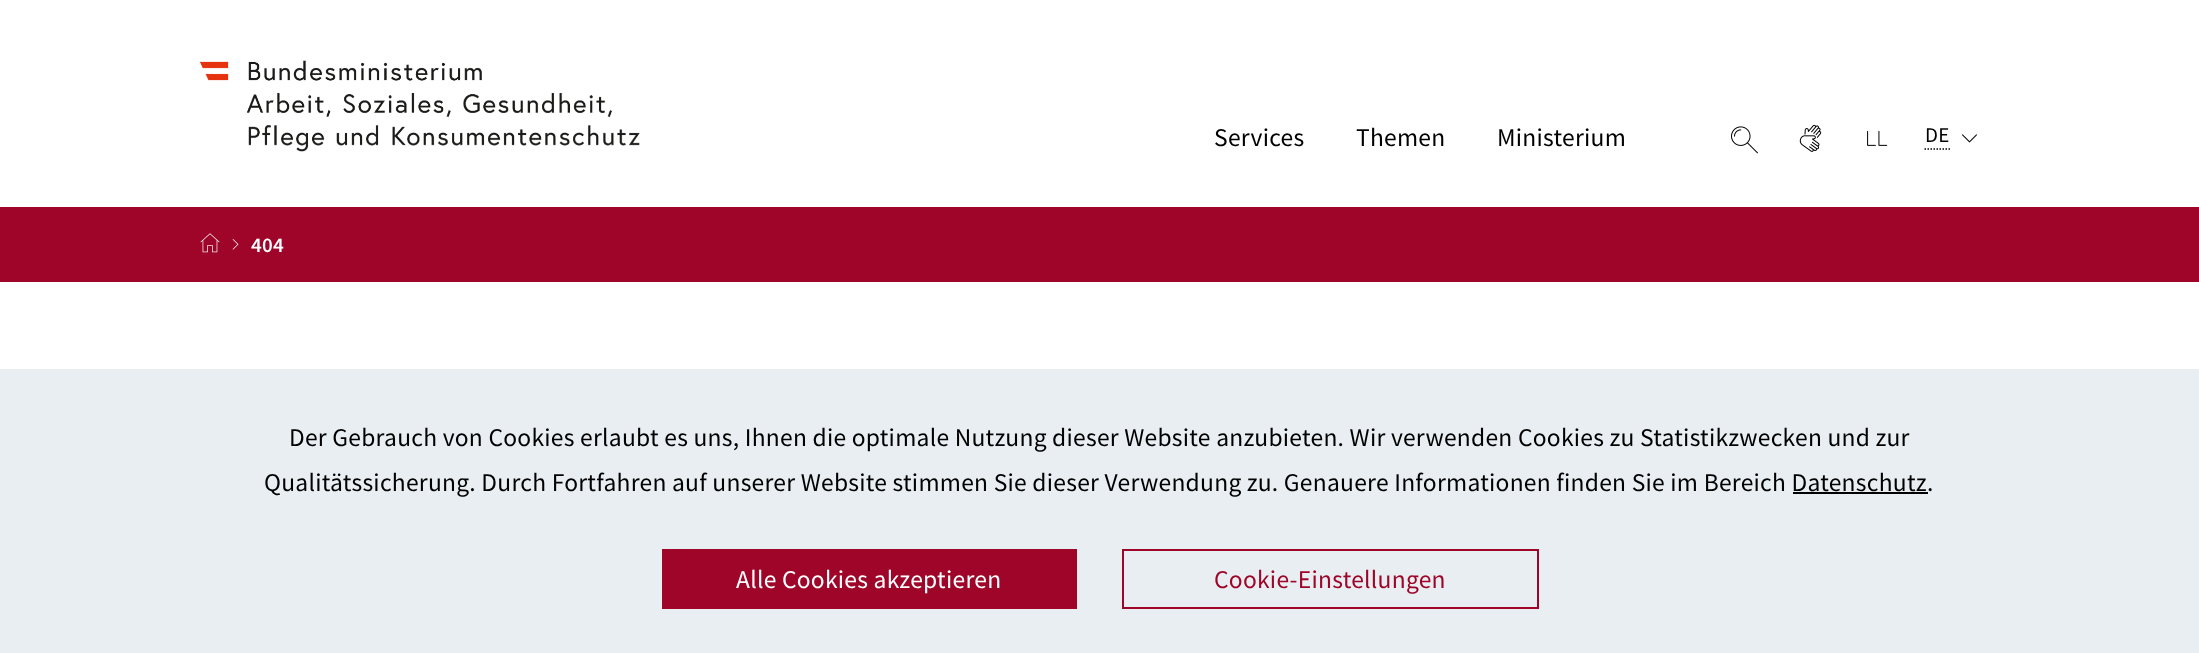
<svg xmlns="http://www.w3.org/2000/svg" width="2199" height="653" viewBox="0 0 2199 653">
  <rect width="100%" height="100%" fill="#ffffff"/>
  <image x="200" y="60" width="440" height="92" href="img1.png"/>
  <text x="1214" y="146" font-family="Source Sans Pro" font-size="25.5" letter-spacing="0.26" fill="#000000">Services</text>
  <text x="1356" y="146" font-family="Source Sans Pro" font-size="25.5" letter-spacing="0.26" fill="#000000">Themen</text>
  <text x="1497" y="146" font-family="Source Sans Pro" font-size="25.5" letter-spacing="0.26" fill="#000000">Ministerium</text>
  <image x="1731" y="126" width="27" height="28" href="img2.png"/>
  <image x="1799" y="124" width="23" height="28" href="img3.png"/>
  <image x="1867" y="130" width="21" height="16" href="img4.png"/>
  <text x="1925" y="142" font-family="Source Sans Pro" font-size="21" letter-spacing="0.26" fill="#000000">DE</text>
  <path d="M1924.5 149H1950" fill="none" stroke="#000000" stroke-width="1.5" stroke-dasharray="1.5 1.5"/>
  <image x="1962" y="134" width="15" height="9" href="img5.png"/>
  <rect x="0" y="207" width="2199" height="75" fill="#9e0529"/>
  <image x="200" y="233" width="20" height="20" href="img6.png"/>
  <image x="232" y="239" width="7" height="11" href="img7.png"/>
  <text x="251" y="252" font-family="Source Sans Pro" font-size="21" font-weight="600" letter-spacing="0.26" fill="#ffffff">404</text>
  <rect x="0" y="369" width="2199" height="284" fill="#e8eef1"/>
  <text x="289" y="446" font-family="Source Sans Pro" font-size="25.5" letter-spacing="0.26" fill="#000000">Der Gebrauch von Cookies erlaubt es uns, Ihnen die optimale Nutzung dieser Website anzubieten. Wir verwenden Cookies zu Statistikzwecken und zur</text>
  <text x="264" y="491" font-family="Source Sans Pro" font-size="25.5" letter-spacing="0.26" fill="#000000">Qualitätssicherung. Durch Fortfahren auf unserer Website stimmen Sie dieser Verwendung zu. Genauere Informationen finden Sie im Bereich Datenschutz.</text>
  <rect x="1793" y="492" width="135" height="2" fill="#000000"/>
  <rect x="662" y="549" width="415" height="60" fill="#9e0529"/>
  <text x="736" y="588" font-family="Source Sans Pro" font-size="25.5" letter-spacing="0.26" fill="#ffffff">Alle Cookies akzeptieren</text>
  <rect x="1123" y="550" width="415" height="58" fill="none" stroke="#9e0529" stroke-width="2"/>
  <text x="1214" y="588" font-family="Source Sans Pro" font-size="25.5" letter-spacing="0.26" fill="#9e0529">Cookie-Einstellungen</text>
</svg>
